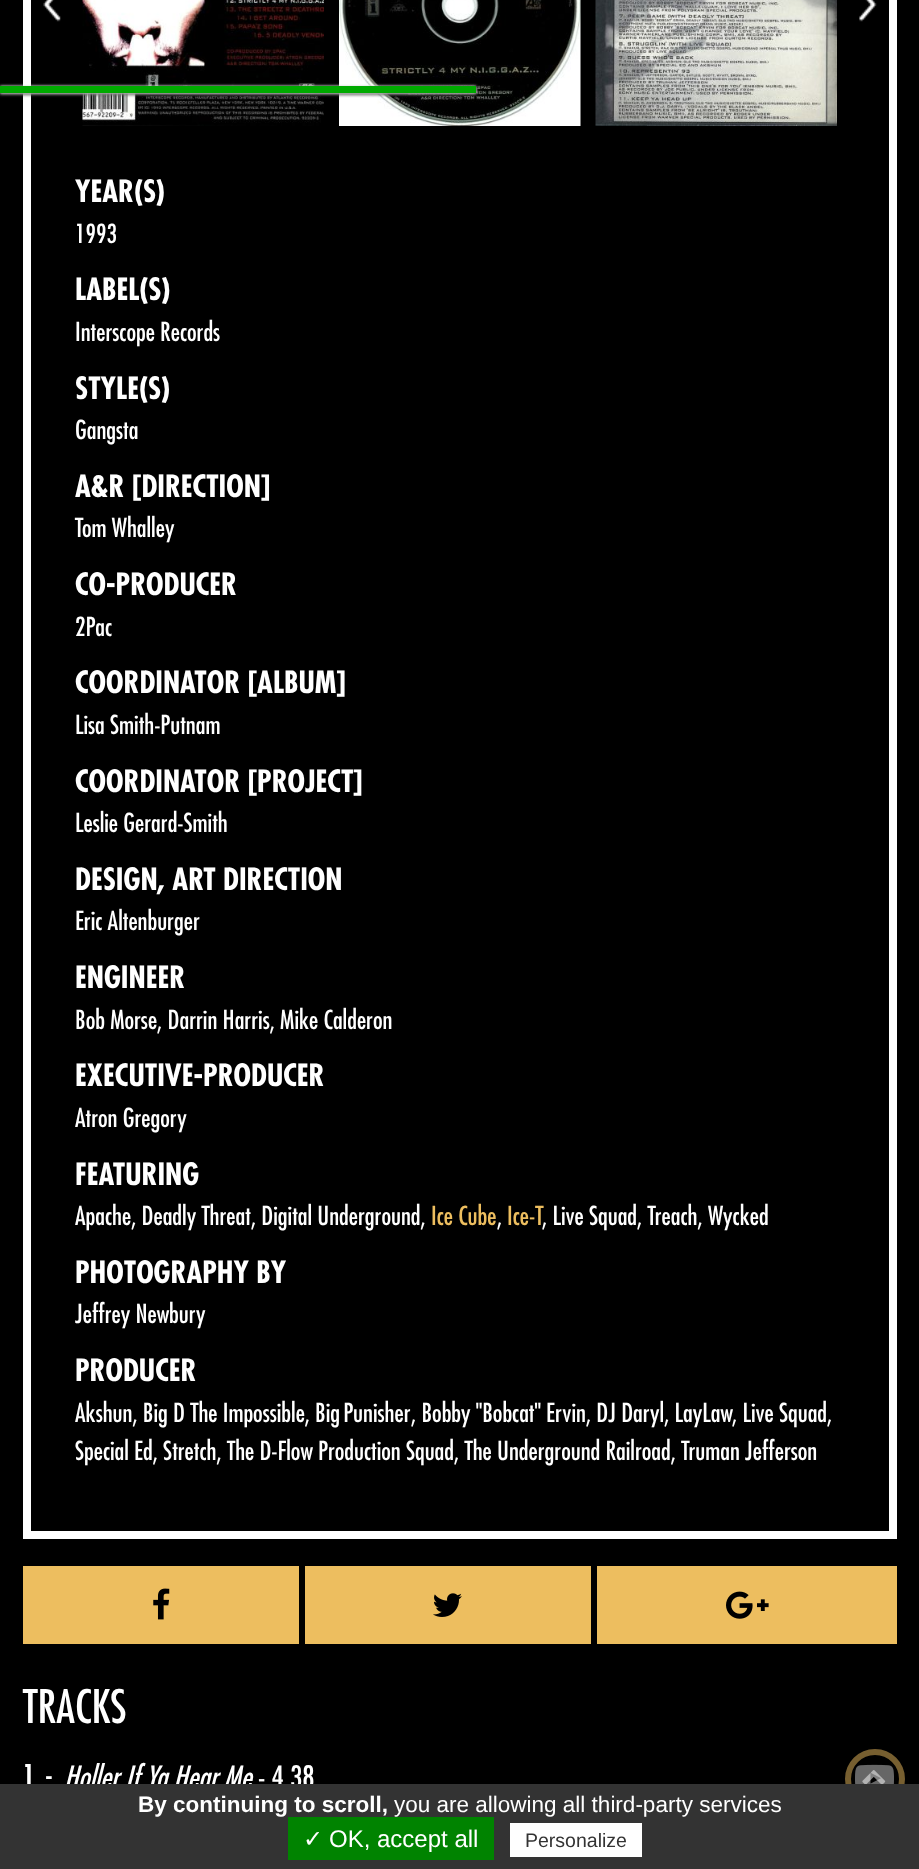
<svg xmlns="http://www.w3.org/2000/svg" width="919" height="1869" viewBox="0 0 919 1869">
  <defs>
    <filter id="blur1" x="-50%" y="-200%" width="200%" height="500%"><feGaussianBlur stdDeviation="1.5"/></filter>
  </defs>
  <rect width="100%" height="100%" fill="#000000"/>
  <rect x="27" y="-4" width="866" height="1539" fill="none" stroke="#ffffff" stroke-width="8"/>
  <image x="43" y="0" width="18" height="22" href="img1.png"/>
  <image x="82" y="0" width="242" height="126" href="img2.png"/>
  <image x="339" y="0" width="242" height="126" href="img3.png"/>
  <image x="595" y="0" width="242" height="126" href="img4.png"/>
  <image x="859" y="0" width="18" height="22" href="img5.png"/>
  <text x="75" y="202" font-family="Futura" font-size="30" font-weight="bold" fill="#ffffff">YEAR(S)</text>
  <text x="75" y="243" font-family="Futura" font-size="25.5" font-weight="500" fill="#ffffff">1993</text>
  <text x="75" y="300" font-family="Futura" font-size="30" font-weight="bold" fill="#ffffff">LABEL(S)</text>
  <text x="75" y="341" font-family="Futura" font-size="25.5" font-weight="500" fill="#ffffff">Interscope Records</text>
  <text x="75" y="399" font-family="Futura" font-size="30" font-weight="bold" fill="#ffffff">STYLE(S)</text>
  <text x="75" y="439" font-family="Futura" font-size="25.5" font-weight="500" fill="#ffffff">Gangsta</text>
  <text x="75" y="497" font-family="Futura" font-size="30" font-weight="bold" fill="#ffffff">A&amp;R [DIRECTION]</text>
  <text x="75" y="537" font-family="Futura" font-size="25.5" font-weight="500" fill="#ffffff">Tom Whalley</text>
  <text x="75" y="595" font-family="Futura" font-size="30" font-weight="bold" fill="#ffffff">CO-PRODUCER</text>
  <text x="75" y="636" font-family="Futura" font-size="25.5" font-weight="500" fill="#ffffff">2Pac</text>
  <text x="75" y="693" font-family="Futura" font-size="30" font-weight="bold" fill="#ffffff">COORDINATOR [ALBUM]</text>
  <text x="75" y="734" font-family="Futura" font-size="25.5" font-weight="500" fill="#ffffff">Lisa Smith-Putnam</text>
  <text x="75" y="792" font-family="Futura" font-size="30" font-weight="bold" fill="#ffffff">COORDINATOR [PROJECT]</text>
  <text x="75" y="832" font-family="Futura" font-size="25.5" font-weight="500" fill="#ffffff">Leslie Gerard-Smith</text>
  <text x="75" y="890" font-family="Futura" font-size="30" font-weight="bold" fill="#ffffff">DESIGN, ART DIRECTION</text>
  <text x="75" y="930" font-family="Futura" font-size="25.5" font-weight="500" fill="#ffffff">Eric Altenburger</text>
  <text x="75" y="988" font-family="Futura" font-size="30" font-weight="bold" fill="#ffffff">ENGINEER</text>
  <text x="75" y="1029" font-family="Futura" font-size="25.5" font-weight="500" fill="#ffffff">Bob Morse, Darrin Harris, Mike Calderon</text>
  <text x="75" y="1086" font-family="Futura" font-size="30" font-weight="bold" fill="#ffffff">EXECUTIVE-PRODUCER</text>
  <text x="75" y="1127" font-family="Futura" font-size="25.5" font-weight="500" fill="#ffffff">Atron Gregory</text>
  <text x="75" y="1185" font-family="Futura" font-size="30" font-weight="bold" fill="#ffffff">FEATURING</text>
  <text x="75" y="1225" font-family="Futura" font-size="25.5" font-weight="500" fill="#ffffff">Apache, Deadly Threat, Digital Underground,</text>
  <text x="431" y="1225" font-family="Futura" font-size="25.5" font-weight="500" fill="#edbe5f">Ice Cube</text>
  <text x="497" y="1225" font-family="Futura" font-size="25.5" font-weight="500" fill="#ffffff">,</text>
  <text x="507" y="1225" font-family="Futura" font-size="25.5" font-weight="500" fill="#edbe5f">Ice-T</text>
  <text x="542" y="1225" font-family="Futura" font-size="25.5" font-weight="500" fill="#ffffff">, Live Squad, Treach, Wycked</text>
  <text x="75" y="1283" font-family="Futura" font-size="30" font-weight="bold" fill="#ffffff">PHOTOGRAPHY BY</text>
  <text x="75" y="1323" font-family="Futura" font-size="25.5" font-weight="500" fill="#ffffff">Jeffrey Newbury</text>
  <text x="75" y="1381" font-family="Futura" font-size="30" font-weight="bold" fill="#ffffff">PRODUCER</text>
  <text x="75" y="1422" font-family="Futura" font-size="25.5" font-weight="500" fill="#ffffff">Akshun, Big D The Impossible,</text>
  <text x="315" y="1422" word-spacing="-2" font-family="Futura" font-size="25.5" font-weight="500" fill="#ffffff">Big Punisher</text>
  <text x="411" y="1422" font-family="Futura" font-size="25.5" font-weight="500" fill="#ffffff">, Bobby "Bobcat" Ervin, DJ Daryl, LayLaw</text>
  <text x="732" y="1422" font-family="Futura" font-size="25.5" font-weight="500" fill="#ffffff">, Live Squad,</text>
  <text x="75" y="1460" font-family="Futura" font-size="25.5" font-weight="500" fill="#ffffff">Special Ed, Stretch, The D-Flow Production Squad, The Underground Railroad, Truman Jefferson</text>
  <rect x="23" y="1566" width="276" height="78" fill="#edbe5f"/>
  <image x="153" y="1588" width="17" height="32" href="img6.png"/>
  <rect x="305" y="1566" width="286" height="78" fill="#edbe5f"/>
  <image x="433" y="1593" width="29" height="24" href="img7.png"/>
  <rect x="597" y="1566" width="300" height="78" fill="#edbe5f"/>
  <image x="726" y="1591" width="43" height="28" href="img8.png"/>
  <text x="23" y="1723" font-family="Futura" font-size="45" font-weight="500" fill="#ffffff">TRACKS</text>
  <text x="23" y="1785" font-family="'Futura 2'" font-size="27" font-weight="bold" fill="#ffffff" xml:space="preserve">1  -</text>
  <text x="64" y="1788" font-family="Futura" font-size="30" font-weight="500" font-style="italic" fill="#ffffff">Holler If Ya Hear Me</text>
  <text x="258" y="1788" font-family="Futura" font-size="30" font-weight="500" fill="#ffffff">- 4.38</text>
  <image x="855" y="1764" width="39" height="20" href="img9.png"/>
  <circle cx="875" cy="1779" r="27" fill="none" stroke="#775f30" stroke-width="6"/>
  <image x="862" y="1770" width="24" height="14" href="img10.png"/>
  <rect x="0" y="87" width="476" height="8" fill="#555555" filter="url(#blur1)"/>
  <rect x="0" y="86" width="476" height="7" fill="#ffffff" filter="url(#blur1)"/>
  <rect x="0" y="86" width="476" height="7" fill="#00aa00"/>
  <rect x="0" y="1784" width="919" height="85" fill="#333333"/>
  <text x="138" y="1812" font-family="Liberation Sans" font-size="22.5" font-weight="bold" fill="#ffffff">By continuing to scroll,</text>
  <text x="394" y="1812" font-family="Liberation Sans" font-size="22.5" fill="#ffffff">you are allowing all third-party services</text>
  <rect x="288" y="1817" width="206" height="43" fill="#008300"/>
  <text x="303" y="1847" font-family="DejaVu Sans" font-size="24" fill="#ffffff">✓</text>
  <text x="329" y="1847" font-family="Liberation Sans" font-size="24" fill="#ffffff">OK, accept all</text>
  <rect x="510" y="1823" width="132" height="34" fill="#ffffff"/>
  <text x="525" y="1847" font-family="Liberation Sans" font-size="19.5" fill="#333333">Personalize</text>
</svg>
